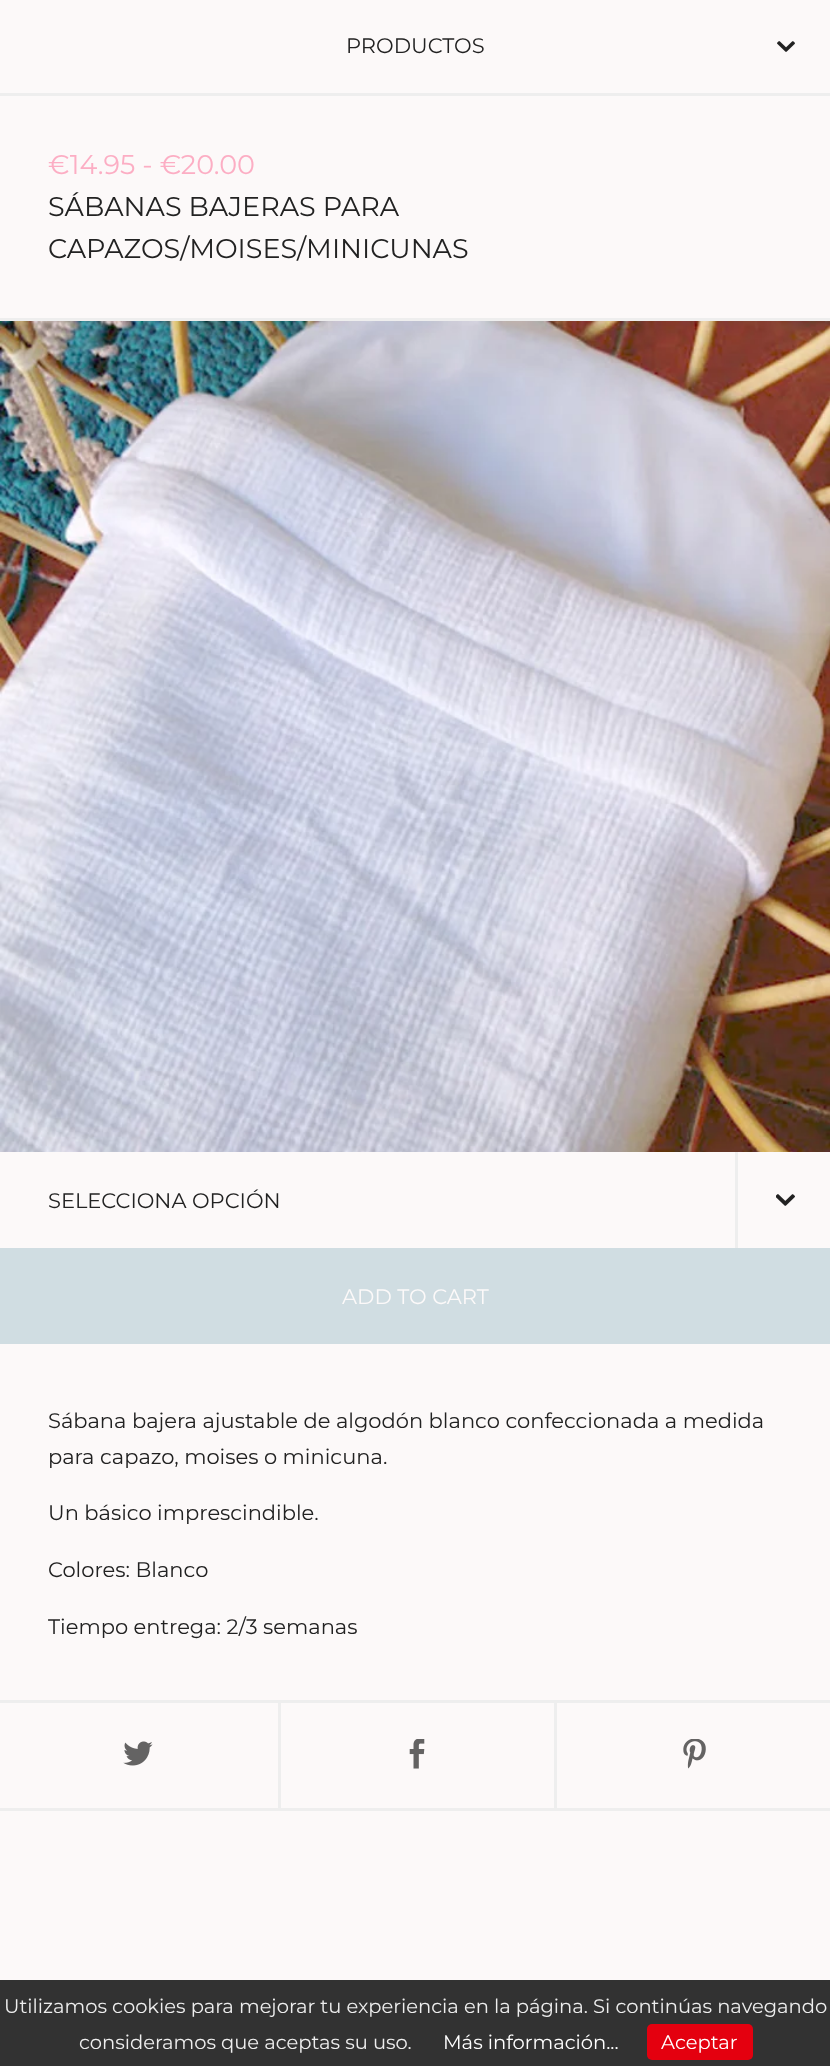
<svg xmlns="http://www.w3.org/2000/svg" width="830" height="2066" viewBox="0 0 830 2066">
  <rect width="100%" height="100%" fill="#fcf9f9"/>
  <rect x="0" y="93" width="830" height="3" fill="#eeeeee"/>
  <text x="346" y="53" font-family="Montserrat" font-size="21" fill="#222222">PRODUCTOS</text>
  <image x="777" y="41" width="18" height="11" href="img1.png"/>
  <text x="48" y="174" font-family="Montserrat" font-size="27" fill="#fcaec4">€14.95 - €20.00</text>
  <text x="48" y="216" font-family="Montserrat" font-size="27" fill="#222222">SÁBANAS BAJERAS PARA</text>
  <text x="48" y="258" font-family="Montserrat" font-size="27" fill="#222222">CAPAZOS/MOISES/MINICUNAS</text>
  <rect x="0" y="318" width="830" height="3" fill="#eeeeee"/>
  <image x="0" y="321" width="830" height="831" href="img2.png"/>
  <text x="48" y="1208" font-family="Montserrat" font-size="21" fill="#222222">SELECCIONA OPCIÓN</text>
  <rect x="735" y="1152" width="3" height="96" fill="#eeeeee"/>
  <image x="776" y="1194" width="19" height="12" href="img3.png"/>
  <rect x="0" y="1248" width="830" height="96" fill="#d0dde2"/>
  <text x="342" y="1304" font-family="Montserrat" font-size="21" fill="#fcf9f9">ADD TO CART</text>
  <text x="48" y="1428" font-family="Montserrat" font-size="21" fill="#222222">Sábana bajera ajustable de algodón blanco confeccionada a medida</text>
  <text x="48" y="1464" font-family="Montserrat" font-size="21" fill="#222222">para capazo, moises o minicuna.</text>
  <text x="48" y="1520" font-family="Montserrat" font-size="21" fill="#222222">Un básico imprescindible.</text>
  <text x="48" y="1577" font-family="Montserrat" font-size="21" fill="#222222">Colores: Blanco</text>
  <text x="48" y="1634" font-family="Montserrat" font-size="21" fill="#222222">Tiempo entrega: 2/3 semanas</text>
  <rect x="0" y="1700" width="830" height="3" fill="#eeeeee"/>
  <rect x="0" y="1808" width="830" height="3" fill="#eeeeee"/>
  <image x="123" y="1741" width="30" height="25" href="img4.png"/>
  <rect x="278" y="1703" width="3" height="105" fill="#eeeeee"/>
  <image x="409" y="1739" width="16" height="30" href="img5.png"/>
  <rect x="554" y="1703" width="3" height="105" fill="#eeeeee"/>
  <image x="683" y="1739" width="23" height="30" href="img6.png"/>
  <rect x="0" y="1980" width="830" height="86" fill="#323232"/>
  <text x="4" y="2013" font-family="Montserrat" font-size="19.5" fill="#eeeeee">Utilizamos cookies para mejorar tu experiencia en la página. Si continúas navegando</text>
  <text x="79" y="2049" font-family="Montserrat" font-size="19.5" fill="#eeeeee">consideramos que aceptas su uso.</text>
  <text x="443" y="2049" font-family="Montserrat" font-size="19.5" fill="#ffffff">Más información...</text>
  <rect x="647" y="2024" width="106" height="36" rx="5" fill="#e4000f"/>
  <text x="661" y="2049" font-family="Montserrat" font-size="19.5" fill="#ffffff">Aceptar</text>
</svg>
